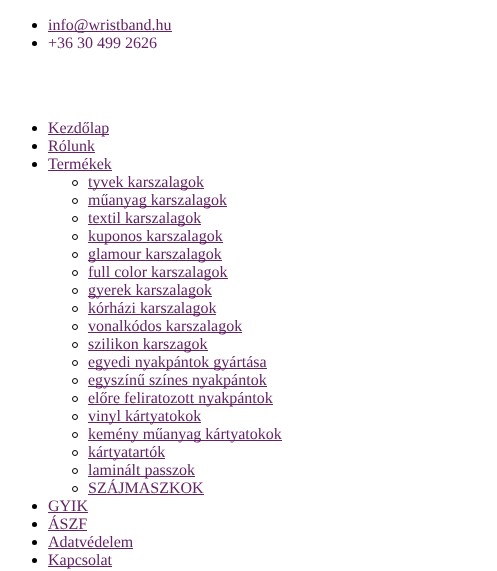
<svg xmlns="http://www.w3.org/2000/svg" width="497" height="571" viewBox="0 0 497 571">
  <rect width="100%" height="100%" fill="#ffffff"/>
  <circle cx="34.5" cy="25.5" r="2.5" fill="#000000"/>
  <rect x="48" y="31" width="124" height="1" fill="#632365"/>
  <text x="48" y="30" font-family="Liberation Serif" font-size="16" fill="#632365">info@wristband.hu</text>
  <circle cx="34.5" cy="43.5" r="2.5" fill="#000000"/>
  <text x="48" y="48" font-family="Liberation Serif" font-size="16" fill="#632365">+36 30 499 2626</text>
  <circle cx="34.5" cy="128.5" r="2.5" fill="#000000"/>
  <rect x="48" y="134" width="61" height="1" fill="#632365"/>
  <text x="48" y="133" font-family="Liberation Serif" font-size="16" fill="#632365">Kezdőlap</text>
  <circle cx="34.5" cy="146.5" r="2.5" fill="#000000"/>
  <text x="48" y="151" font-family="Liberation Serif" font-size="16" fill="#632365">Rólunk</text>
  <rect x="48" y="152" width="47" height="1" fill="#632365"/>
  <circle cx="34.5" cy="164.5" r="2.5" fill="#000000"/>
  <text x="48" y="169" font-family="Liberation Serif" font-size="16" fill="#632365">Termékek</text>
  <rect x="48" y="170" width="64" height="1" fill="#632365"/>
  <circle cx="75" cy="183" r="2.5" fill="none" stroke="#000000"/>
  <rect x="88" y="188" width="116" height="1" fill="#632365"/>
  <text x="88" y="187" font-family="Liberation Serif" font-size="16" fill="#632365">tyvek karszalagok</text>
  <circle cx="75" cy="201" r="2.5" fill="none" stroke="#000000"/>
  <rect x="88" y="206" width="139" height="1" fill="#632365"/>
  <text x="88" y="205" font-family="Liberation Serif" font-size="16" fill="#632365">műanyag karszalagok</text>
  <circle cx="75" cy="219" r="2.5" fill="none" stroke="#000000"/>
  <rect x="88" y="224" width="113" height="1" fill="#632365"/>
  <text x="88" y="223" font-family="Liberation Serif" font-size="16" fill="#632365">textil karszalagok</text>
  <circle cx="75" cy="237" r="2.5" fill="none" stroke="#000000"/>
  <rect x="88" y="242" width="135" height="1" fill="#632365"/>
  <text x="88" y="241" font-family="Liberation Serif" font-size="16" fill="#632365">kuponos karszalagok</text>
  <circle cx="75" cy="255" r="2.5" fill="none" stroke="#000000"/>
  <rect x="88" y="260" width="134" height="1" fill="#632365"/>
  <text x="88" y="259" font-family="Liberation Serif" font-size="16" fill="#632365">glamour karszalagok</text>
  <circle cx="75" cy="273" r="2.5" fill="none" stroke="#000000"/>
  <rect x="88" y="278" width="140" height="1" fill="#632365"/>
  <text x="88" y="277" font-family="Liberation Serif" font-size="16" fill="#632365">full color karszalagok</text>
  <circle cx="75" cy="291" r="2.5" fill="none" stroke="#000000"/>
  <rect x="88" y="296" width="124" height="1" fill="#632365"/>
  <text x="88" y="295" font-family="Liberation Serif" font-size="16" fill="#632365">gyerek karszalagok</text>
  <circle cx="75" cy="309" r="2.5" fill="none" stroke="#000000"/>
  <rect x="88" y="314" width="128" height="1" fill="#632365"/>
  <text x="88" y="313" font-family="Liberation Serif" font-size="16" fill="#632365">kórházi karszalagok</text>
  <circle cx="75" cy="327" r="2.5" fill="none" stroke="#000000"/>
  <rect x="88" y="332" width="154" height="1" fill="#632365"/>
  <text x="88" y="331" font-family="Liberation Serif" font-size="16" fill="#632365">vonalkódos karszalagok</text>
  <circle cx="75" cy="345" r="2.5" fill="none" stroke="#000000"/>
  <rect x="88" y="350" width="120" height="1" fill="#632365"/>
  <text x="88" y="349" font-family="Liberation Serif" font-size="16" fill="#632365">szilikon karszagok</text>
  <circle cx="75" cy="363" r="2.5" fill="none" stroke="#000000"/>
  <rect x="88" y="368" width="179" height="1" fill="#632365"/>
  <text x="88" y="367" font-family="Liberation Serif" font-size="16" fill="#632365">egyedi nyakpántok gyártása</text>
  <circle cx="75" cy="381" r="2.5" fill="none" stroke="#000000"/>
  <rect x="88" y="386" width="179" height="1" fill="#632365"/>
  <text x="88" y="385" font-family="Liberation Serif" font-size="16" fill="#632365">egyszínű színes nyakpántok</text>
  <circle cx="75" cy="399" r="2.5" fill="none" stroke="#000000"/>
  <rect x="88" y="404" width="185" height="1" fill="#632365"/>
  <text x="88" y="403" font-family="Liberation Serif" font-size="16" fill="#632365">előre feliratozott nyakpántok</text>
  <circle cx="75" cy="417" r="2.5" fill="none" stroke="#000000"/>
  <rect x="88" y="422" width="113" height="1" fill="#632365"/>
  <text x="88" y="421" font-family="Liberation Serif" font-size="16" fill="#632365">vinyl kártyatokok</text>
  <circle cx="75" cy="435" r="2.5" fill="none" stroke="#000000"/>
  <rect x="88" y="440" width="194" height="1" fill="#632365"/>
  <text x="88" y="439" font-family="Liberation Serif" font-size="16" fill="#632365">kemény műanyag kártyatokok</text>
  <circle cx="75" cy="453" r="2.5" fill="none" stroke="#000000"/>
  <rect x="88" y="458" width="77" height="1" fill="#632365"/>
  <text x="88" y="457" font-family="Liberation Serif" font-size="16" fill="#632365">kártyatartók</text>
  <circle cx="75" cy="471" r="2.5" fill="none" stroke="#000000"/>
  <rect x="88" y="476" width="107" height="1" fill="#632365"/>
  <text x="88" y="475" font-family="Liberation Serif" font-size="16" fill="#632365">laminált passzok</text>
  <circle cx="75" cy="489" r="2.5" fill="none" stroke="#000000"/>
  <text x="88" y="493" font-family="Liberation Serif" font-size="16" fill="#632365">SZÁJMASZKOK</text>
  <rect x="88" y="494" width="116" height="1" fill="#632365"/>
  <circle cx="34.5" cy="506.5" r="2.5" fill="#000000"/>
  <text x="48" y="511" font-family="Liberation Serif" font-size="16" fill="#632365">GYIK</text>
  <rect x="48" y="512" width="40" height="1" fill="#632365"/>
  <circle cx="34.5" cy="524.5" r="2.5" fill="#000000"/>
  <text x="48" y="529" font-family="Liberation Serif" font-size="16" fill="#632365">ÁSZF</text>
  <rect x="48" y="530" width="39" height="1" fill="#632365"/>
  <circle cx="34.5" cy="542.5" r="2.5" fill="#000000"/>
  <text x="48" y="547" font-family="Liberation Serif" font-size="16" fill="#632365">Adatvédelem</text>
  <rect x="48" y="548" width="85" height="1" fill="#632365"/>
  <circle cx="34.5" cy="560.5" r="2.5" fill="#000000"/>
  <rect x="48" y="566" width="64" height="1" fill="#632365"/>
  <text x="48" y="565" font-family="Liberation Serif" font-size="16" fill="#632365">Kapcsolat</text>
</svg>
